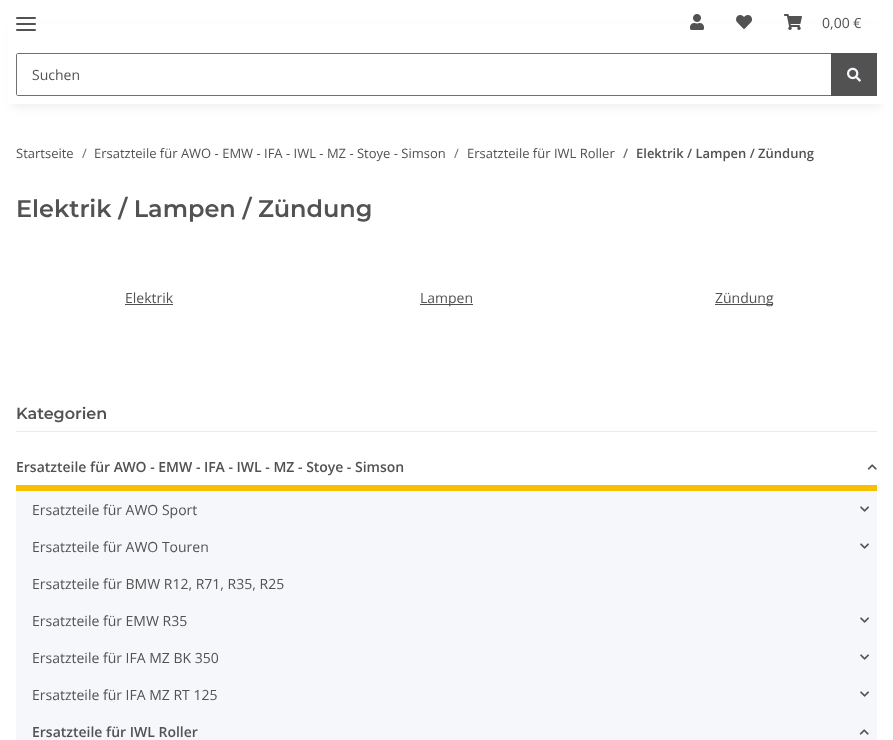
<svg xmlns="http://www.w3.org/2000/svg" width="893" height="740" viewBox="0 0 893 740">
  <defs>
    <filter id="blur1" x="-50%" y="-200%" width="200%" height="500%"><feGaussianBlur stdDeviation="4.5"/></filter>
  </defs>
  <rect width="100%" height="100%" fill="#ffffff"/>
  <rect x="12" y="28" width="869" height="80" fill="#000000" fill-opacity="0.06" filter="url(#blur1)"/>
  <rect x="8" y="24" width="877" height="80" fill="#ffffff"/>
  <rect x="16" y="23" width="20" height="2" rx="1" fill="#525252"/>
  <rect x="16" y="17" width="20" height="2" rx="1" fill="#525252"/>
  <rect x="16" y="29" width="20" height="2" rx="1" fill="#525252"/>
  <image x="690" y="14" width="14" height="16" href="img1.png"/>
  <image x="736" y="15" width="16" height="14" href="img2.png"/>
  <image x="784" y="14" width="18" height="16" href="img3.png"/>
  <text x="822" y="28" font-family="Open Sans" font-size="14" fill="#525252">0,00 €</text>
  <path d="M18 53.5H831.5V95.5H18C17 95.5 16.5 95 16.5 94V55C16.5 54 17 53.5 18 53.5Z" fill="none" stroke="#707070"/>
  <text x="32" y="80" font-family="Open Sans" font-size="14" fill="#525252">Suchen</text>
  <rect x="831" y="53" width="46" height="43" fill="#525252"/>
  <image x="847" y="67" width="14" height="15" href="img4.png"/>
  <text x="16" y="158" font-family="Open Sans" font-size="13" fill="#525252">Startseite</text>
  <text x="82" y="158" font-family="Open Sans" font-size="13" fill="#707070">/</text>
  <text x="94" y="158" font-family="Open Sans" font-size="13" fill="#525252">Ersatzteile für AWO - EMW - IFA - IWL - MZ - Stoye - Simson</text>
  <text x="454" y="158" font-family="Open Sans" font-size="13" fill="#707070">/</text>
  <text x="467" y="158" font-family="Open Sans" font-size="13" fill="#525252">Ersatzteile für IWL Roller</text>
  <text x="623" y="158" font-family="Open Sans" font-size="13" font-weight="600" fill="#707070">/</text>
  <text x="636" y="158" font-family="Open Sans" font-size="13" font-weight="600" fill="#525252">Elektrik / Lampen / Zündung</text>
  <text x="16" y="217" font-family="Montserrat" font-size="24" font-weight="600" fill="#525252">Elektrik / Lampen / Zündung</text>
  <text x="125" y="303" font-family="Open Sans" font-size="14" fill="#525252">Elektrik</text>
  <rect x="125" y="304" width="48" height="1" fill="#525252"/>
  <rect x="420" y="304" width="53" height="1" fill="#525252"/>
  <text x="420" y="303" font-family="Open Sans" font-size="14" fill="#525252">Lampen</text>
  <rect x="715" y="304" width="58" height="1" fill="#525252"/>
  <text x="715" y="303" font-family="Open Sans" font-size="14" fill="#525252">Zündung</text>
  <rect x="16" y="431" width="861" height="1" fill="#ebebeb"/>
  <text x="16" y="419" font-family="Montserrat" font-size="16" font-weight="600" fill="#525252">Kategorien</text>
  <rect x="16" y="485" width="861" height="6" fill="#f8bf00"/>
  <text x="16" y="472" font-family="Open Sans" font-size="14" font-weight="600" fill="#525252">Ersatzteile für AWO - EMW - IFA - IWL - MZ - Stoye - Simson</text>
  <image x="867" y="464" width="10" height="6" href="img5.png"/>
  <rect x="16" y="491" width="861" height="249" fill="#f5f7fa"/>
  <text x="32" y="515" font-family="Open Sans" font-size="14" fill="#525252">Ersatzteile für AWO Sport</text>
  <image x="860" y="506" width="9" height="6" href="img6.png"/>
  <text x="32" y="552" font-family="Open Sans" font-size="14" fill="#525252">Ersatzteile für AWO Touren</text>
  <image x="860" y="543" width="9" height="6" href="img6.png"/>
  <text x="32" y="589" font-family="Open Sans" font-size="14" fill="#525252">Ersatzteile für BMW R12, R71, R35, R25</text>
  <text x="32" y="626" font-family="Open Sans" font-size="14" fill="#525252">Ersatzteile für EMW R35</text>
  <image x="860" y="617" width="9" height="6" href="img6.png"/>
  <text x="32" y="663" font-family="Open Sans" font-size="14" fill="#525252">Ersatzteile für IFA MZ BK 350</text>
  <image x="860" y="654" width="9" height="6" href="img6.png"/>
  <text x="32" y="700" font-family="Open Sans" font-size="14" fill="#525252">Ersatzteile für IFA MZ RT 125</text>
  <image x="860" y="691" width="9" height="6" href="img6.png"/>
  <text x="32" y="737" font-family="Open Sans" font-size="14" font-weight="600" fill="#525252">Ersatzteile für IWL Roller</text>
  <image x="859" y="729" width="10" height="6" href="img7.png"/>
</svg>
